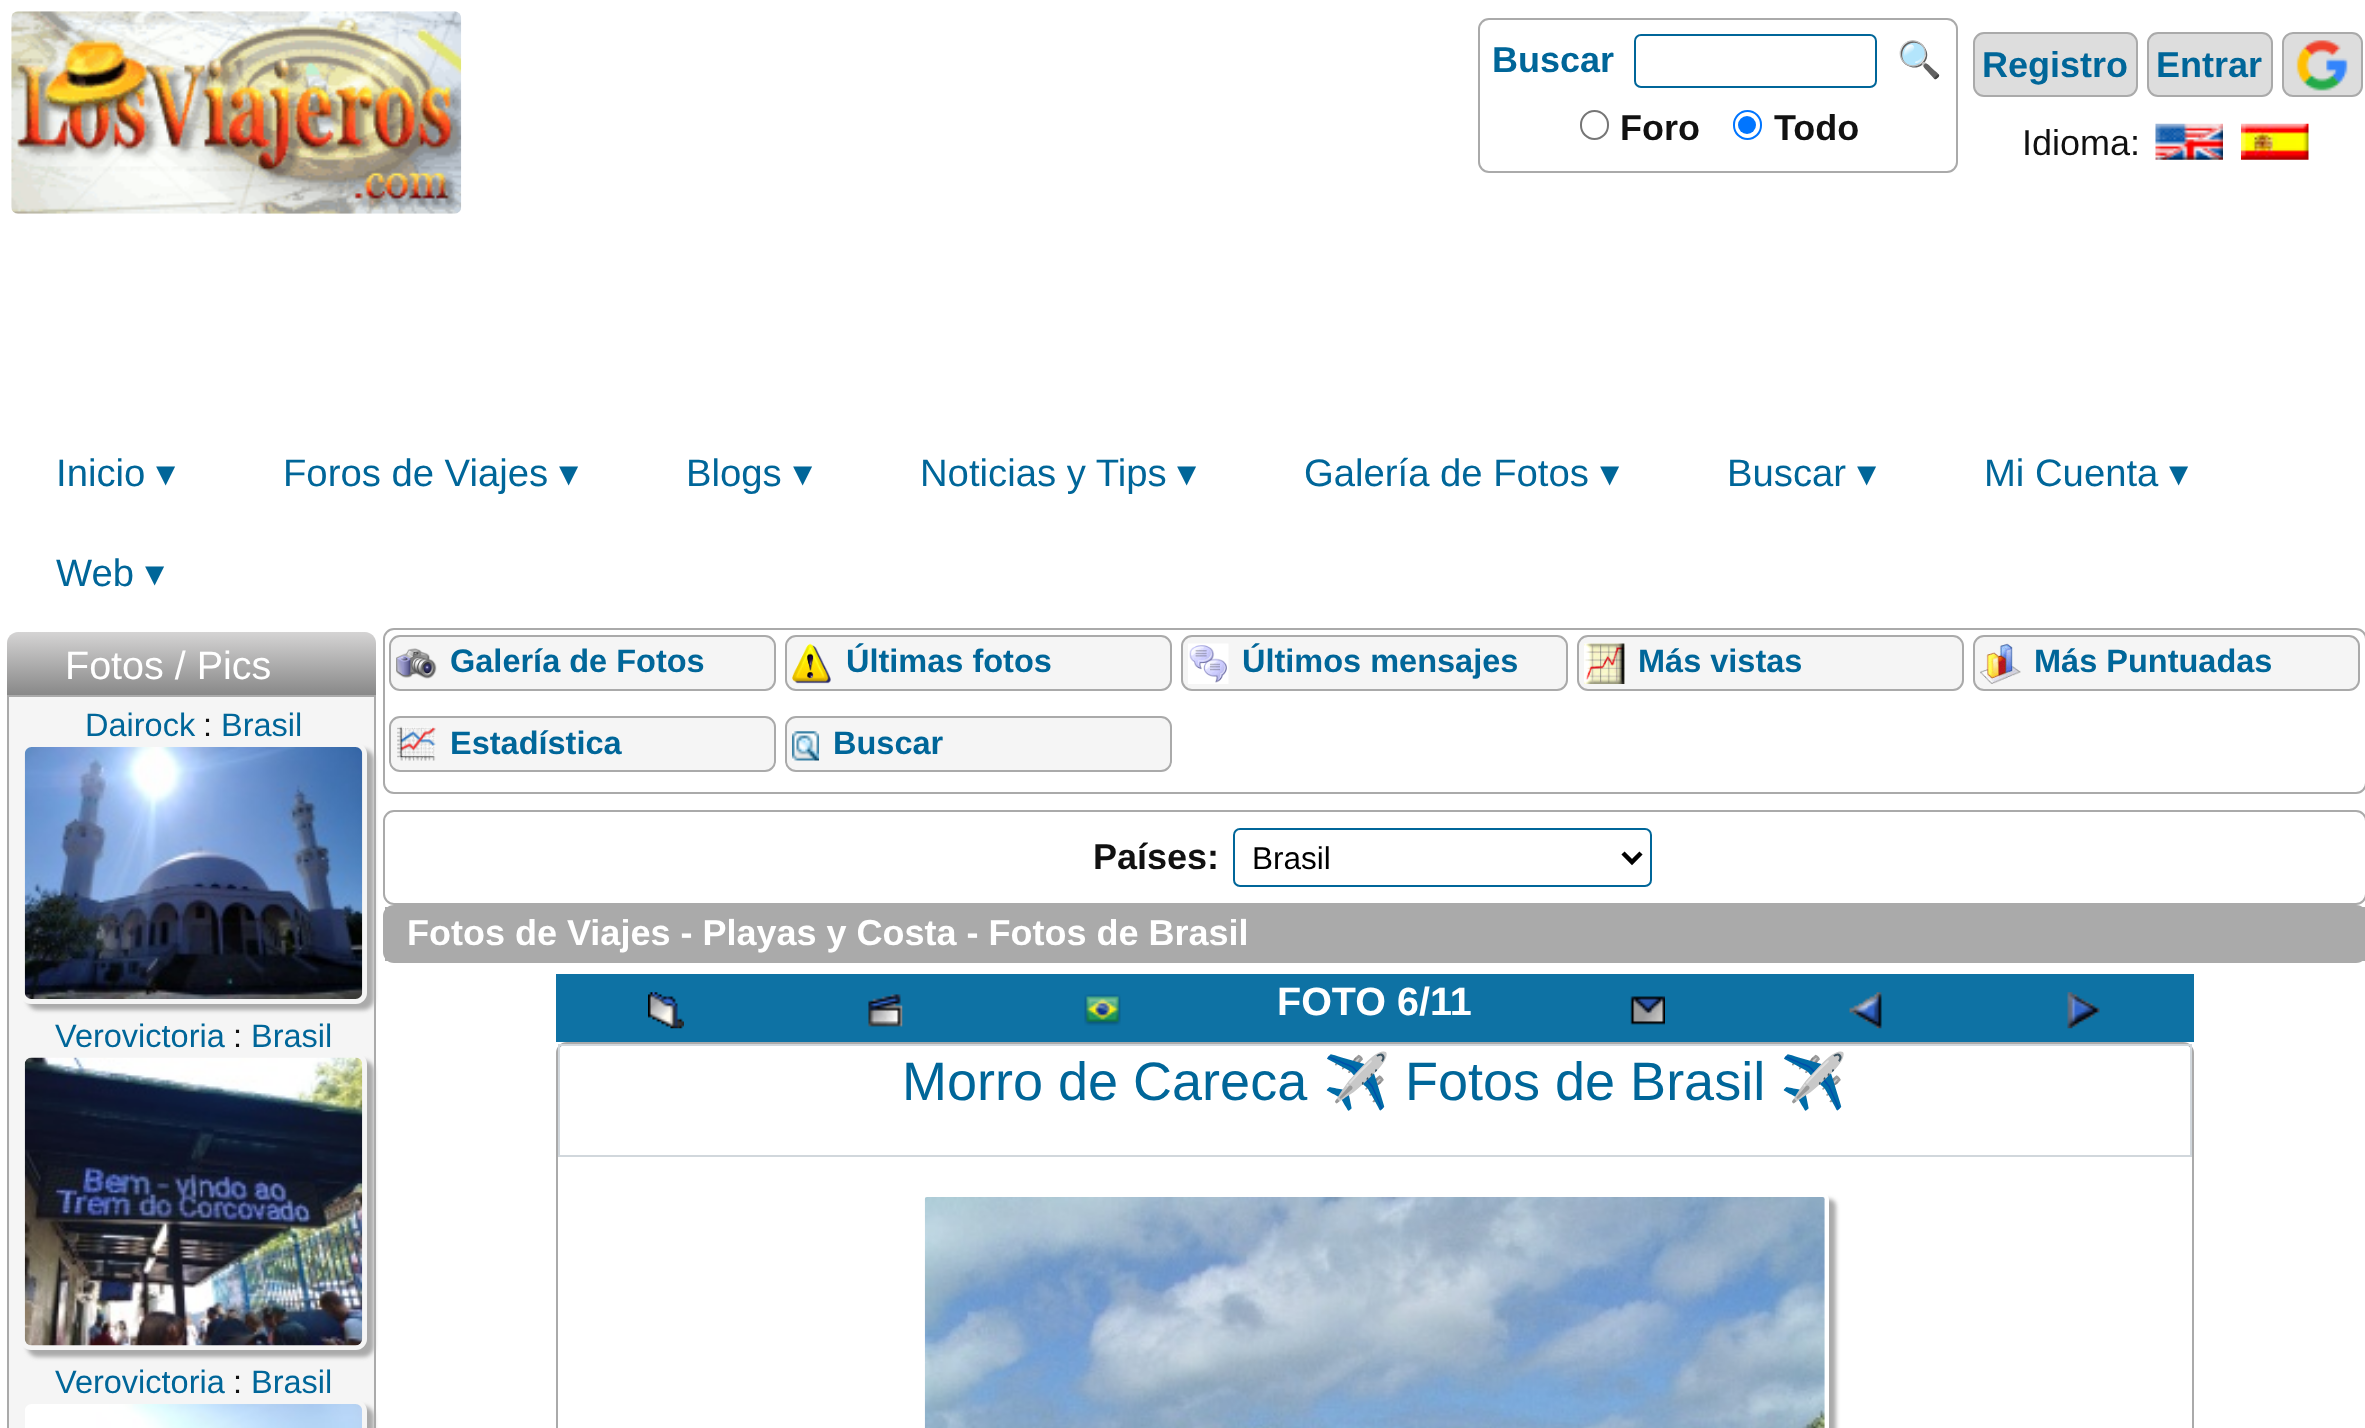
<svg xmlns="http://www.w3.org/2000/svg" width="2365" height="1428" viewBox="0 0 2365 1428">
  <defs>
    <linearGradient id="g1" gradientUnits="userSpaceOnUse" x1="191" y1="632" x2="191" y2="695"><stop offset="0" stop-color="#d5d4d4"/><stop offset="1" stop-color="#888888"/></linearGradient>
    <clipPath id="clip1"><path d="M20 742H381V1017H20ZM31 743H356C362 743 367 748 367 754V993C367 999 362 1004 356 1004H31C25 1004 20 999 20 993V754C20 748 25 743 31 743Z" clip-rule="evenodd"/></clipPath>
    <filter id="blur1" x="-50%" y="-200%" width="200%" height="500%"><feGaussianBlur stdDeviation="2"/></filter>
    <clipPath id="clip2"><path d="M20 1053H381V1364H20ZM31 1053H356C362 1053 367 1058 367 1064V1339C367 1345 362 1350 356 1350H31C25 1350 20 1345 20 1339V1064C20 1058 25 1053 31 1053Z" clip-rule="evenodd"/></clipPath>
    <clipPath id="clip3"><path d="M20 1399H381V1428H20ZM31 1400H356C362 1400 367 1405 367 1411V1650C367 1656 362 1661 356 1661H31C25 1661 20 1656 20 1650V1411C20 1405 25 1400 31 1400Z" clip-rule="evenodd"/></clipPath>
    <clipPath id="clip4"><path d="M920 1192H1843V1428H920ZM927 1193H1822C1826 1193 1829 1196 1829 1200V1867C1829 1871 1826 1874 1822 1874H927C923 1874 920 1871 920 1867V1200C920 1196 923 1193 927 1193Z" clip-rule="evenodd"/></clipPath>
  </defs>
  <rect width="100%" height="100%" fill="#ffffff"/>
  <image x="11" y="11" width="451" height="203" href="img1.png"/>
  <rect x="1479" y="19" width="478" height="153" rx="10" fill="none" stroke="#aaaaaa" stroke-width="2"/>
  <text x="1492" y="72" font-family="Liberation Sans" font-size="36" font-weight="bold" fill="#006699">Buscar</text>
  <rect x="1635" y="35" width="241" height="52" rx="6" fill="none" stroke="#006699" stroke-width="2"/>
  <text x="1897" y="72" font-family="Noto Color Emoji" font-size="36" fill="#006699">🔍</text>
  <rect x="1581" y="111" width="27" height="28" rx="13.5" fill="none" stroke="#767676" stroke-width="2"/>
  <text x="1620" y="140" font-family="Liberation Sans" font-size="36" font-weight="bold" fill="#111111">Foro</text>
  <rect x="1734" y="111" width="27" height="28" rx="13.5" fill="none" stroke="#0075ff" stroke-width="2"/>
  <circle cx="1747" cy="125" r="9" fill="#0075ff"/>
  <text x="1774" y="140" font-family="Liberation Sans" font-size="36" font-weight="bold" fill="#111111">Todo</text>
  <rect x="2283" y="33" width="79" height="63" rx="10" fill="#dddddd" stroke="#aaaaaa" stroke-width="2"/>
  <rect x="1974" y="33" width="163" height="63" rx="10" fill="#dddddd" stroke="#aaaaaa" stroke-width="2"/>
  <text x="1982" y="77" font-family="Liberation Sans" font-size="36" font-weight="bold" fill="#006699">Registro</text>
  <rect x="2148" y="33" width="124" height="63" rx="10" fill="#dddddd" stroke="#aaaaaa" stroke-width="2"/>
  <text x="2156" y="77" font-family="Liberation Sans" font-size="36" font-weight="bold" fill="#006699">Entrar</text>
  <image x="2296" y="40" width="52" height="51" href="img2.png"/>
  <text x="2022" y="155" font-family="Liberation Sans" font-size="36" fill="#111111">Idioma:</text>
  <image x="2155" y="123" width="68" height="37" href="img3.png"/>
  <image x="2241" y="123" width="68" height="37" href="img4.png"/>
  <text x="56" y="486" font-family="Liberation Sans" font-size="38.25" fill="#006699">Inicio</text>
  <text x="156" y="486" font-family="DejaVu Sans" font-size="38.25" fill="#006699">▾</text>
  <text x="283" y="486" font-family="Liberation Sans" font-size="38.25" fill="#006699">Foros de Viajes</text>
  <text x="559" y="486" font-family="DejaVu Sans" font-size="38.25" fill="#006699">▾</text>
  <text x="686" y="486" font-family="Liberation Sans" font-size="38.25" fill="#006699">Blogs</text>
  <text x="793" y="486" font-family="DejaVu Sans" font-size="38.25" fill="#006699">▾</text>
  <text x="920" y="486" font-family="Liberation Sans" font-size="38.25" fill="#006699">Noticias y Tips</text>
  <text x="1177" y="486" font-family="DejaVu Sans" font-size="38.25" fill="#006699">▾</text>
  <text x="1304" y="486" font-family="Liberation Sans" font-size="38.25" fill="#006699">Galería de Fotos</text>
  <text x="1600" y="486" font-family="DejaVu Sans" font-size="38.25" fill="#006699">▾</text>
  <text x="1727" y="486" font-family="Liberation Sans" font-size="38.25" fill="#006699">Buscar</text>
  <text x="1857" y="486" font-family="DejaVu Sans" font-size="38.25" fill="#006699">▾</text>
  <text x="1984" y="486" font-family="Liberation Sans" font-size="38.25" fill="#006699">Mi Cuenta</text>
  <text x="2169" y="486" font-family="DejaVu Sans" font-size="38.25" fill="#006699">▾</text>
  <text x="56" y="586" font-family="Liberation Sans" font-size="38.25" fill="#006699">Web</text>
  <text x="145" y="586" font-family="DejaVu Sans" font-size="38.25" fill="#006699">▾</text>
  <path d="M18 632H365C371 632 376 637 376 643V695H7V643C7 637 12 632 18 632Z" fill="url(#g1)"/>
  <text x="65" y="679" font-family="Liberation Sans" font-size="39.5" fill="#ffffff">Fotos / Pics</text>
  <rect x="8" y="696" width="367" height="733" fill="#f5f5f5" stroke="#aaaaaa" stroke-width="2"/>
  <text x="85" y="736" font-family="Liberation Sans" font-size="32.5" fill="#006699">Dairock</text>
  <text x="203" y="736" font-family="Liberation Sans" font-size="32.5" fill="#111111">:</text>
  <text x="221" y="736" font-family="Liberation Sans" font-size="32.5" fill="#006699">Brasil</text>
  <g clip-path="url(#clip1)">
    <rect x="27" y="749" width="347" height="261" rx="11" fill="#aaaaaa" filter="url(#blur1)"/>
  </g>
  <image x="24" y="747" width="339" height="252" href="img5.png"/>
  <text x="55" y="1047" font-family="Liberation Sans" font-size="32.5" fill="#006699">Verovictoria</text>
  <text x="233" y="1047" font-family="Liberation Sans" font-size="32.5" fill="#111111">:</text>
  <text x="251" y="1047" font-family="Liberation Sans" font-size="32.5" fill="#006699">Brasil</text>
  <g clip-path="url(#clip2)">
    <rect x="27" y="1060" width="347" height="297" rx="11" fill="#aaaaaa" filter="url(#blur1)"/>
  </g>
  <image x="24" y="1057" width="339" height="289" href="img6.png"/>
  <text x="55" y="1393" font-family="Liberation Sans" font-size="32.5" fill="#006699">Verovictoria</text>
  <text x="233" y="1393" font-family="Liberation Sans" font-size="32.5" fill="#111111">:</text>
  <text x="251" y="1393" font-family="Liberation Sans" font-size="32.5" fill="#006699">Brasil</text>
  <g clip-path="url(#clip3)">
    <rect x="27" y="1406" width="347" height="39" rx="11" fill="#aaaaaa" filter="url(#blur1)"/>
  </g>
  <image x="25" y="1404" width="337" height="24" href="img7.png"/>
  <rect x="384" y="629" width="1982" height="164" rx="10" fill="none" stroke="#aaaaaa" stroke-width="2"/>
  <rect x="390" y="636" width="385" height="54" rx="10" fill="#f5f5f5" stroke="#aaaaaa" stroke-width="2"/>
  <image x="396" y="648" width="41" height="31" href="img8.png"/>
  <text x="450" y="672" font-family="Liberation Sans" font-size="32.5" font-weight="bold" fill="#006699">Galería de Fotos</text>
  <rect x="786" y="636" width="385" height="54" rx="10" fill="#f5f5f5" stroke="#aaaaaa" stroke-width="2"/>
  <image x="792" y="643" width="39" height="41" href="img9.png"/>
  <text x="846" y="672" font-family="Liberation Sans" font-size="32.5" font-weight="bold" fill="#006699">Últimas fotos</text>
  <rect x="1182" y="636" width="385" height="54" rx="10" fill="#f5f5f5" stroke="#aaaaaa" stroke-width="2"/>
  <image x="1188" y="643" width="41" height="41" href="img10.png"/>
  <text x="1242" y="672" font-family="Liberation Sans" font-size="32.5" font-weight="bold" fill="#006699">Últimos mensajes</text>
  <rect x="1578" y="636" width="385" height="54" rx="10" fill="#f5f5f5" stroke="#aaaaaa" stroke-width="2"/>
  <image x="1584" y="643" width="41" height="41" href="img11.png"/>
  <text x="1638" y="672" font-family="Liberation Sans" font-size="32.5" font-weight="bold" fill="#006699">Más vistas</text>
  <rect x="1974" y="636" width="385" height="54" rx="10" fill="#f5f5f5" stroke="#aaaaaa" stroke-width="2"/>
  <image x="1980" y="643" width="41" height="41" href="img12.png"/>
  <text x="2034" y="672" font-family="Liberation Sans" font-size="32.5" font-weight="bold" fill="#006699">Más Puntuadas</text>
  <rect x="390" y="717" width="385" height="54" rx="10" fill="#f5f5f5" stroke="#aaaaaa" stroke-width="2"/>
  <image x="397" y="726" width="39" height="35" href="img13.png"/>
  <text x="450" y="754" font-family="Liberation Sans" font-size="32.5" font-weight="bold" fill="#006699">Estadística</text>
  <rect x="786" y="717" width="385" height="54" rx="10" fill="#f5f5f5" stroke="#aaaaaa" stroke-width="2"/>
  <image x="792" y="731" width="27" height="30" href="img14.png"/>
  <text x="833" y="754" font-family="Liberation Sans" font-size="32.5" font-weight="bold" fill="#006699">Buscar</text>
  <rect x="384" y="811" width="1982" height="93" rx="10" fill="none" stroke="#aaaaaa" stroke-width="2"/>
  <text x="1093" y="869" font-family="Liberation Sans" font-size="36" font-weight="bold" fill="#111111">Países:</text>
  <rect x="1234" y="829" width="417" height="57" rx="6" fill="none" stroke="#006699" stroke-width="2"/>
  <path d="M1623 853L1632 862L1641 853" fill="none" stroke="#000000" stroke-width="4.5"/>
  <text x="1252" y="869" font-family="Liberation Sans" font-size="31.5" fill="#000000">Brasil</text>
  <rect x="384" y="906" width="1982" height="56" rx="10" fill="none" stroke="#aaaaaa" stroke-width="2"/>
  <rect x="385" y="907" width="1980" height="54" fill="#aaaaaa"/>
  <text x="407" y="945" font-family="Liberation Sans" font-size="36" font-weight="bold" fill="#ffffff">Fotos de Viajes - Playas y Costa - Fotos de Brasil</text>
  <rect x="556" y="974" width="1638" height="68" fill="#0e72a4"/>
  <image x="648" y="992" width="36" height="37" href="img15.png"/>
  <image x="868" y="994" width="35" height="33" href="img16.png"/>
  <image x="1084" y="994" width="37" height="32" href="img17.png"/>
  <text x="1277" y="1015" font-family="Liberation Sans" font-size="39.5" font-weight="bold" fill="#ffffff">FOTO 6/11</text>
  <image x="1630" y="996" width="35" height="29" href="img18.png"/>
  <image x="1849" y="992" width="33" height="37" href="img19.png"/>
  <image x="2067" y="992" width="33" height="37" href="img20.png"/>
  <rect x="557" y="1043" width="1636" height="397" rx="10" fill="none" stroke="#aaaaaa" stroke-width="2"/>
  <rect x="559" y="1045" width="1632" height="111" fill="none" stroke="#d1d7dc" stroke-width="2"/>
  <text x="902" y="1100" font-family="Liberation Sans" font-size="54" fill="#006699">Morro de Careca</text>
  <text x="1323" y="1100" font-family="Noto Color Emoji" font-size="54" fill="#006699">✈️</text>
  <text x="1405" y="1100" font-family="Liberation Sans" font-size="54" fill="#006699">Fotos de Brasil</text>
  <text x="1780" y="1100" font-family="Noto Color Emoji" font-size="54" fill="#006699">✈️</text>
  <g clip-path="url(#clip4)">
    <rect x="927" y="1199" width="909" height="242" rx="7" fill="#aaaaaa" filter="url(#blur1)"/>
  </g>
  <image x="924" y="1197" width="901" height="231" href="img21.png"/>
</svg>
